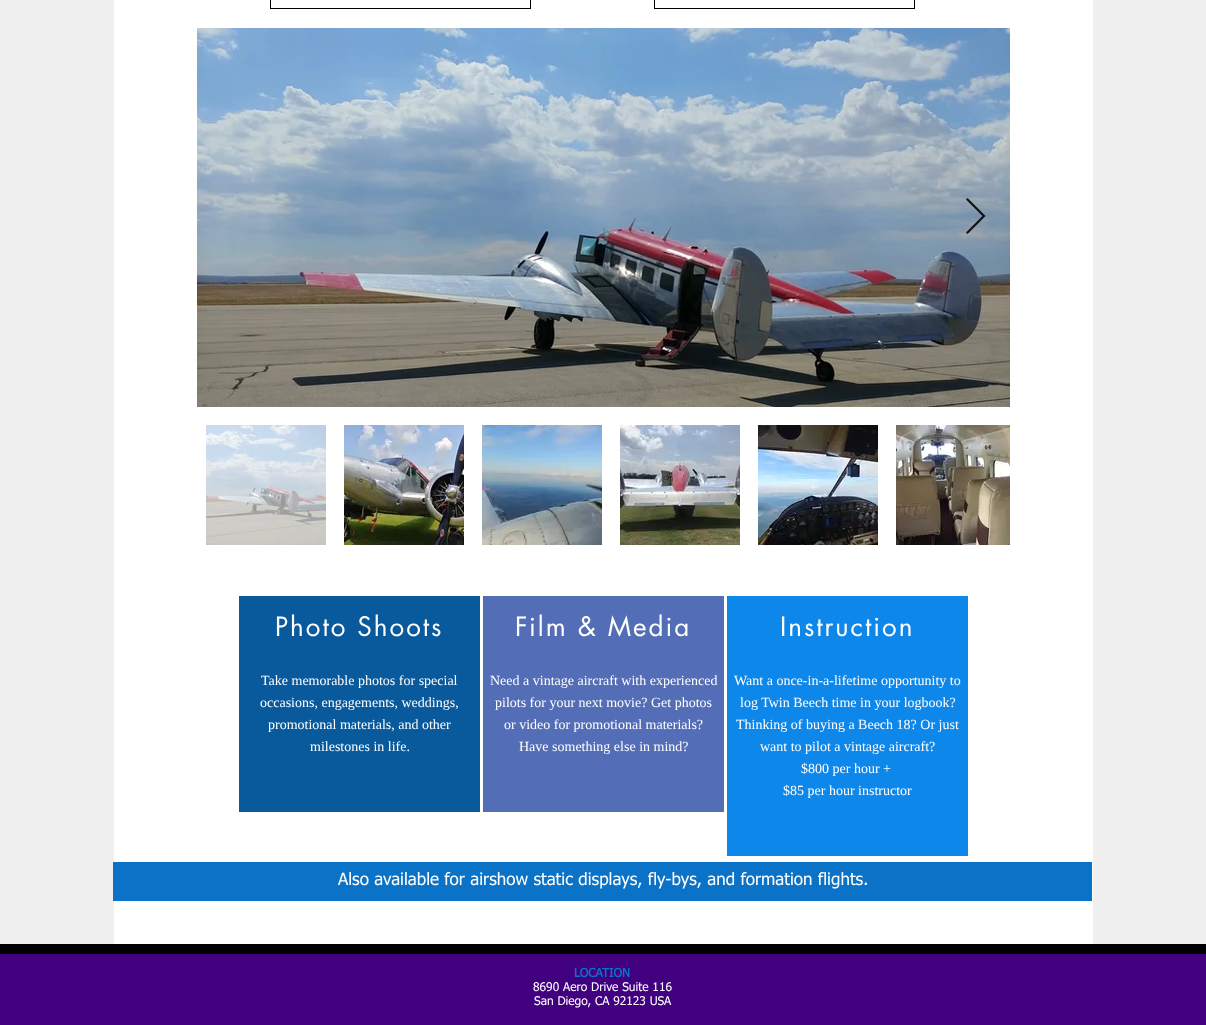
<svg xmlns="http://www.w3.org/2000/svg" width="1206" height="1025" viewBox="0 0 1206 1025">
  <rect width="100%" height="100%" fill="#f0f0f0"/>
  <rect x="114" y="0" width="979" height="944" fill="#ffffff"/>
  <rect x="270.5" y="-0.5" width="260" height="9" fill="none" stroke="#000000"/>
  <rect x="654.5" y="-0.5" width="260" height="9" fill="none" stroke="#000000"/>
  <image x="197" y="28" width="813" height="379" href="img1.png"/>
  <path d="M966 199.5L967.5 198L985.5 216L967.5 234L966 232.5L982.5 216Z" fill="#000000" fill-opacity="0.9"/>
  <image x="206" y="425" width="120" height="120" href="img2.png"/>
  <image x="344" y="425" width="120" height="120" href="img3.png"/>
  <image x="482" y="425" width="120" height="120" href="img4.png"/>
  <image x="620" y="425" width="120" height="120" href="img5.png"/>
  <image x="758" y="425" width="120" height="120" href="img6.png"/>
  <image x="896" y="425" width="114" height="120" href="img7.png"/>
  <rect x="239" y="596" width="241" height="216" fill="#095a9c"/>
  <text x="275" y="636" font-family="futura" font-size="26" letter-spacing="2" fill="#ffffff">Photo Shoots</text>
  <text x="261" y="685" font-family="Liberation Serif" font-size="14" fill="#ffffff">Take memorable photos for special</text>
  <text x="260" y="707" font-family="Liberation Serif" font-size="14" fill="#ffffff">occasions, engagements, weddings,</text>
  <text x="268" y="729" font-family="Liberation Serif" font-size="14" fill="#ffffff">promotional materials, and other</text>
  <text x="310" y="751" font-family="Liberation Serif" font-size="14" fill="#ffffff">milestones in life.</text>
  <rect x="483" y="596" width="241" height="216" fill="#536eb7"/>
  <text x="515" y="636" font-family="futura" font-size="26" letter-spacing="2" fill="#ffffff">Film &amp; Media</text>
  <text x="490" y="685" font-family="Liberation Serif" font-size="14" fill="#ffffff">Need a vintage aircraft with experienced</text>
  <text x="495" y="707" font-family="Liberation Serif" font-size="14" fill="#ffffff">pilots for your next movie? Get photos</text>
  <text x="504" y="729" font-family="Liberation Serif" font-size="14" fill="#ffffff">or video for promotional materials?</text>
  <text x="519" y="751" font-family="Liberation Serif" font-size="14" fill="#ffffff">Have something else in mind?</text>
  <rect x="727" y="596" width="241" height="260" fill="#0e87ea"/>
  <text x="780" y="636" font-family="futura" font-size="26" letter-spacing="2" fill="#ffffff">Instruction</text>
  <text x="734" y="685" font-family="Liberation Serif" font-size="14" fill="#ffffff">Want a once-in-a-lifetime opportunity to</text>
  <text x="740" y="707" font-family="Liberation Serif" font-size="14" fill="#ffffff">log Twin Beech time in your logbook?</text>
  <text x="736" y="729" font-family="Liberation Serif" font-size="14" fill="#ffffff">Thinking of buying a Beech 18? Or just</text>
  <text x="760" y="751" font-family="Liberation Serif" font-size="14" fill="#ffffff">want to pilot a vintage aircraft?</text>
  <text x="801" y="773" font-family="Liberation Serif" font-size="14" fill="#ffffff">$800 per hour +</text>
  <text x="783" y="795" font-family="Liberation Serif" font-size="14" fill="#ffffff">$85 per hour instructor</text>
  <rect x="113" y="862" width="979" height="39" fill="#0a72c7"/>
  <text x="338" y="885" font-family="tahoma" font-size="17" fill="#ffffff">Also available for airshow static displays, fly-bys, and formation flights.</text>
  <rect x="0" y="954" width="1206" height="71" fill="#400080"/>
  <rect x="0" y="944" width="1206" height="10" fill="#000000"/>
  <text x="574" y="977" font-family="tahoma" font-size="12" font-weight="bold" fill="#0a72c7">LOCATION</text>
  <text x="533" y="991" font-family="tahoma" font-size="12" fill="#ffffff">8690 Aero Drive Suite 116</text>
  <text x="534" y="1005" font-family="tahoma" font-size="12" fill="#ffffff">San Diego, CA 92123 USA</text>
</svg>
